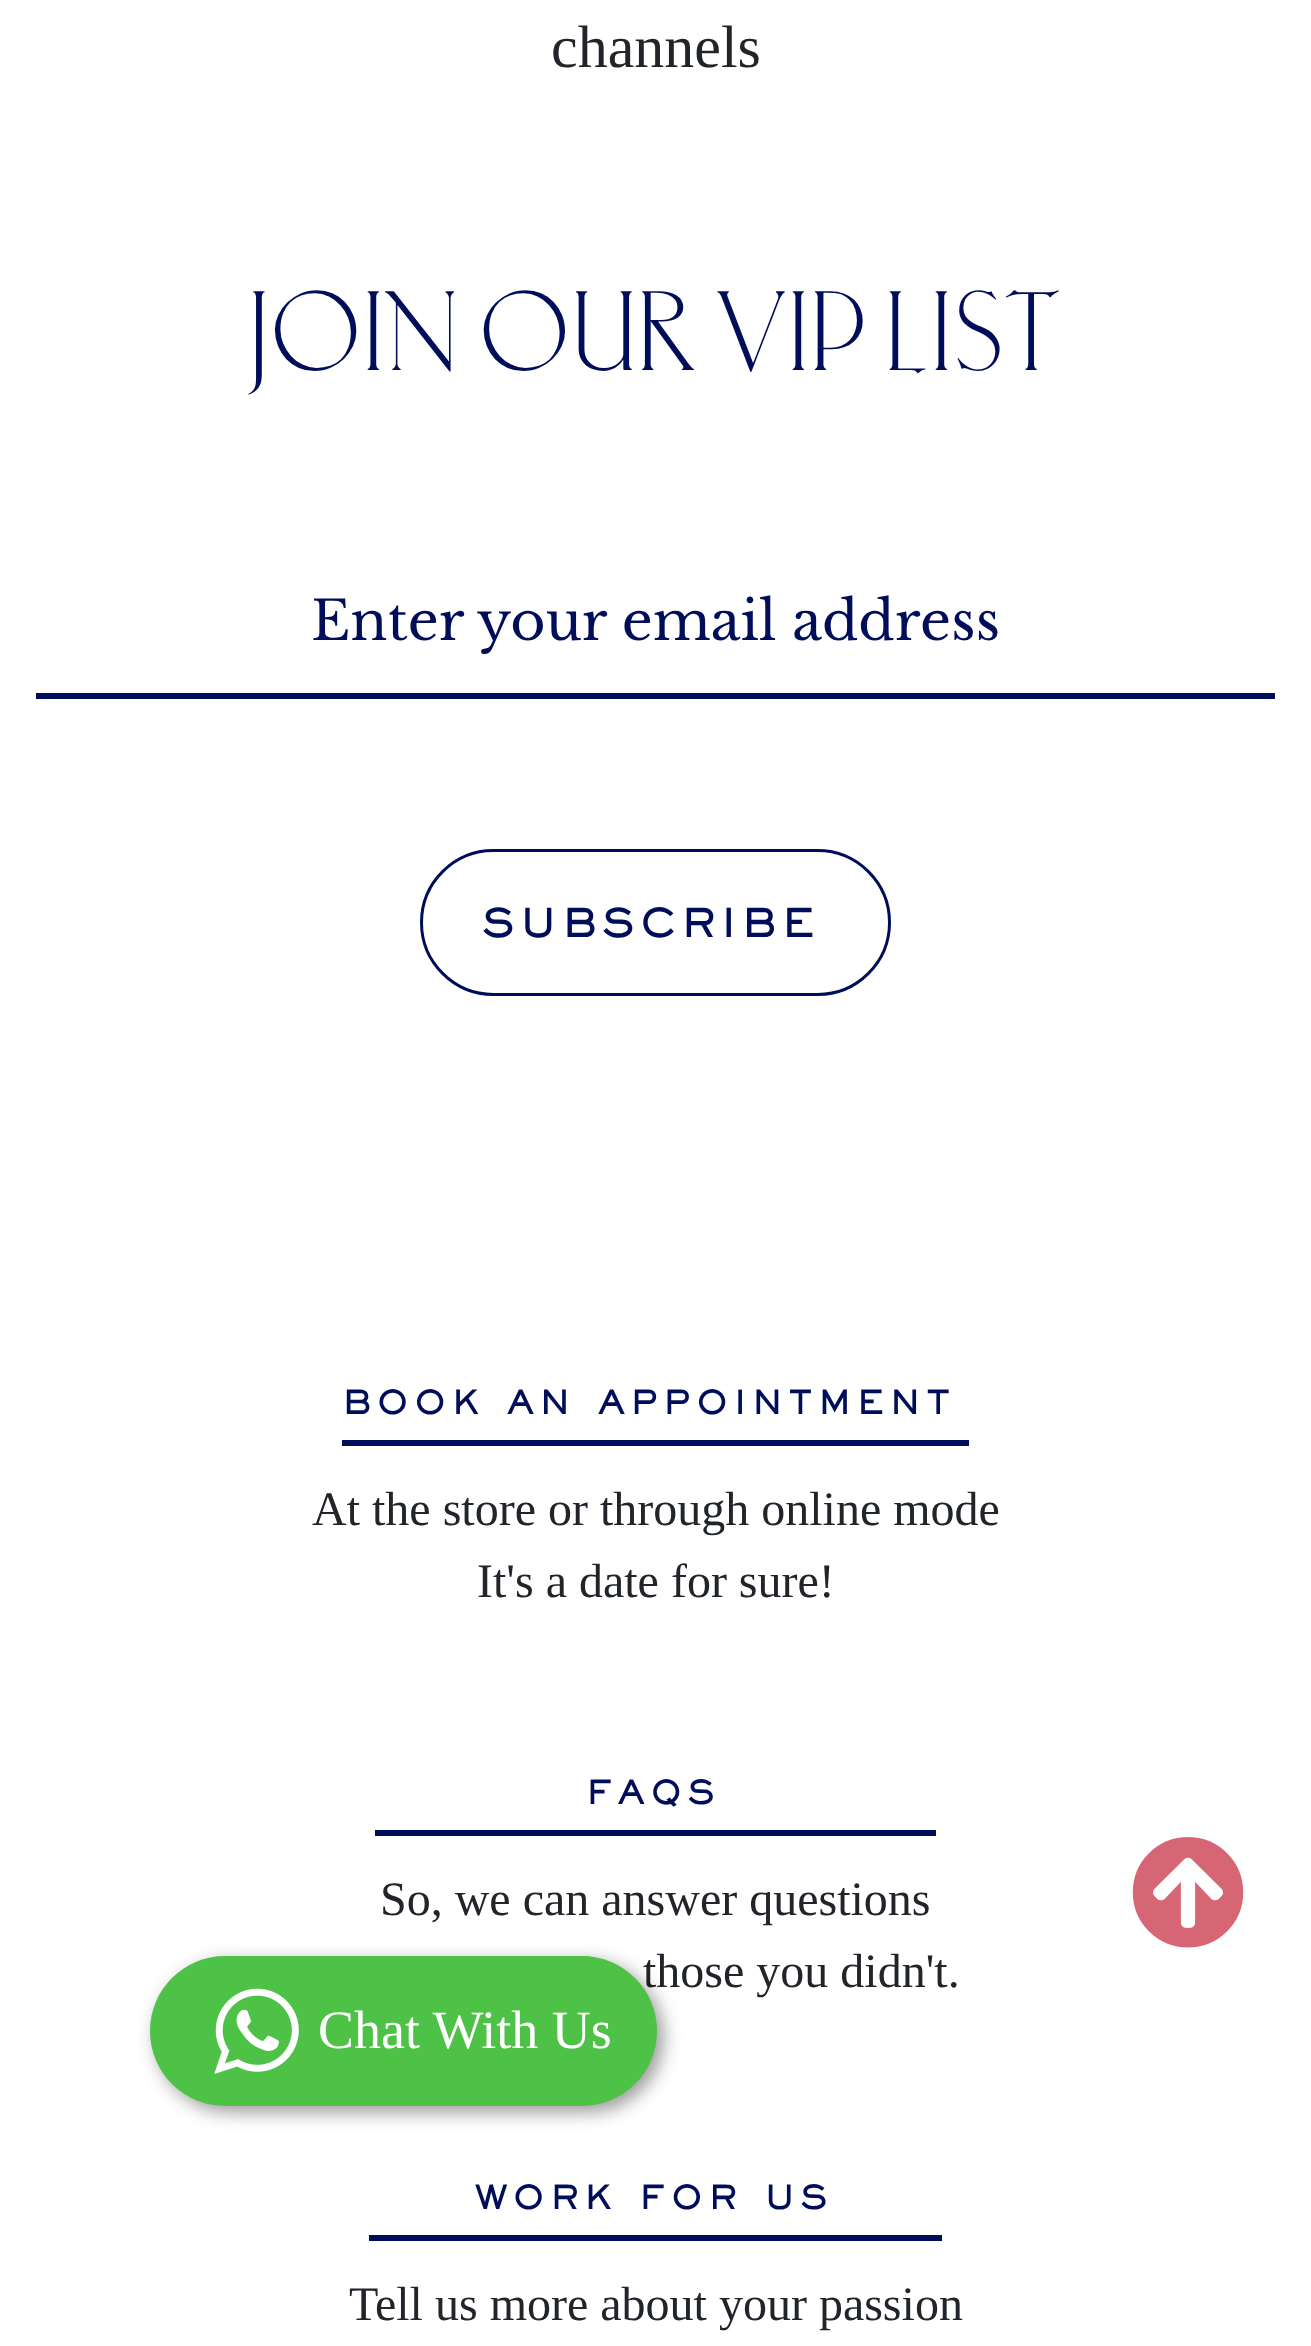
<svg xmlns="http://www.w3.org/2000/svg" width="1311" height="2346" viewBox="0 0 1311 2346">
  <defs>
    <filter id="blur1" x="-50%" y="-200%" width="200%" height="500%"><feGaussianBlur stdDeviation="9"/></filter>
  </defs>
  <rect width="100%" height="100%" fill="#ffffff"/>
  <text x="551" y="67" font-family="Liberation Serif" font-size="60" fill="#212529">channels</text>
  <text x="249" y="370" font-family="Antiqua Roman" font-size="105" letter-spacing="3" fill="#000e5a">JOIN OUR VIP LIST</text>
  <rect x="36" y="693" width="1239" height="6" fill="#000e5a"/>
  <text x="311" y="640" font-family="Libre Baskerville" font-size="54" fill="#000e5a">Enter your email address</text>
  <rect x="421.5" y="850.5" width="468" height="144" rx="72" fill="none" stroke="#000e5a" stroke-width="3"/>
  <text x="482" y="937" font-family="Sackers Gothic" font-size="37.75" font-weight="bold" letter-spacing="6" fill="#000e5a">SUBSCRIBE</text>
  <text x="342" y="1414" font-family="Sackers Gothic" font-size="31.5" font-weight="bold" letter-spacing="6" fill="#000e5a">BOOK</text>
  <rect x="342" y="1440" width="627" height="6" fill="#000e5a"/>
  <text x="507" y="1414" font-family="Sackers Gothic" font-size="31.5" font-weight="bold" letter-spacing="6" fill="#000e5a">AN</text>
  <text x="598" y="1414" font-family="Sackers Gothic" font-size="31.5" font-weight="bold" letter-spacing="6" fill="#000e5a">APPOINTMENT</text>
  <text x="312" y="1525" font-family="Liberation Serif" font-size="48" fill="#212529">At the store or through online mode</text>
  <text x="477" y="1597" font-family="Liberation Serif" font-size="48" fill="#212529">It's a date for sure!</text>
  <text x="586" y="1804" font-family="Sackers Gothic" font-size="31.5" font-weight="bold" letter-spacing="6" fill="#000e5a">FAQS</text>
  <rect x="375" y="1830" width="561" height="6" fill="#000e5a"/>
  <text x="380" y="1915" font-family="Liberation Serif" font-size="48" fill="#212529">So, we can answer questions</text>
  <text x="643" y="1987" font-family="Liberation Serif" font-size="48" fill="#212529">those you didn't.</text>
  <text x="475" y="2209" font-family="Sackers Gothic" font-size="31.5" font-weight="bold" letter-spacing="6" fill="#000e5a">WORK</text>
  <rect x="369" y="2235" width="573" height="6" fill="#000e5a"/>
  <text x="639" y="2209" font-family="Sackers Gothic" font-size="31.5" font-weight="bold" letter-spacing="6" fill="#000e5a">FOR</text>
  <text x="764" y="2209" font-family="Sackers Gothic" font-size="31.5" font-weight="bold" letter-spacing="6" fill="#000e5a">US</text>
  <text x="349" y="2320" font-family="Liberation Serif" font-size="48" fill="#212529">Tell us more about your passion</text>
  <image x="1132" y="1837" width="112" height="111" href="img1.png"/>
  <rect x="156" y="1962" width="507" height="150" rx="75" fill="#000000" fill-opacity="0.4" filter="url(#blur1)"/>
  <rect x="150" y="1956" width="507" height="150" rx="75" fill="#4dc247"/>
  <image x="214" y="1988" width="85" height="86" href="img2.png"/>
  <text x="318" y="2048" font-family="Liberation Serif" font-size="54" fill="#ffffff">Chat With Us</text>
</svg>
